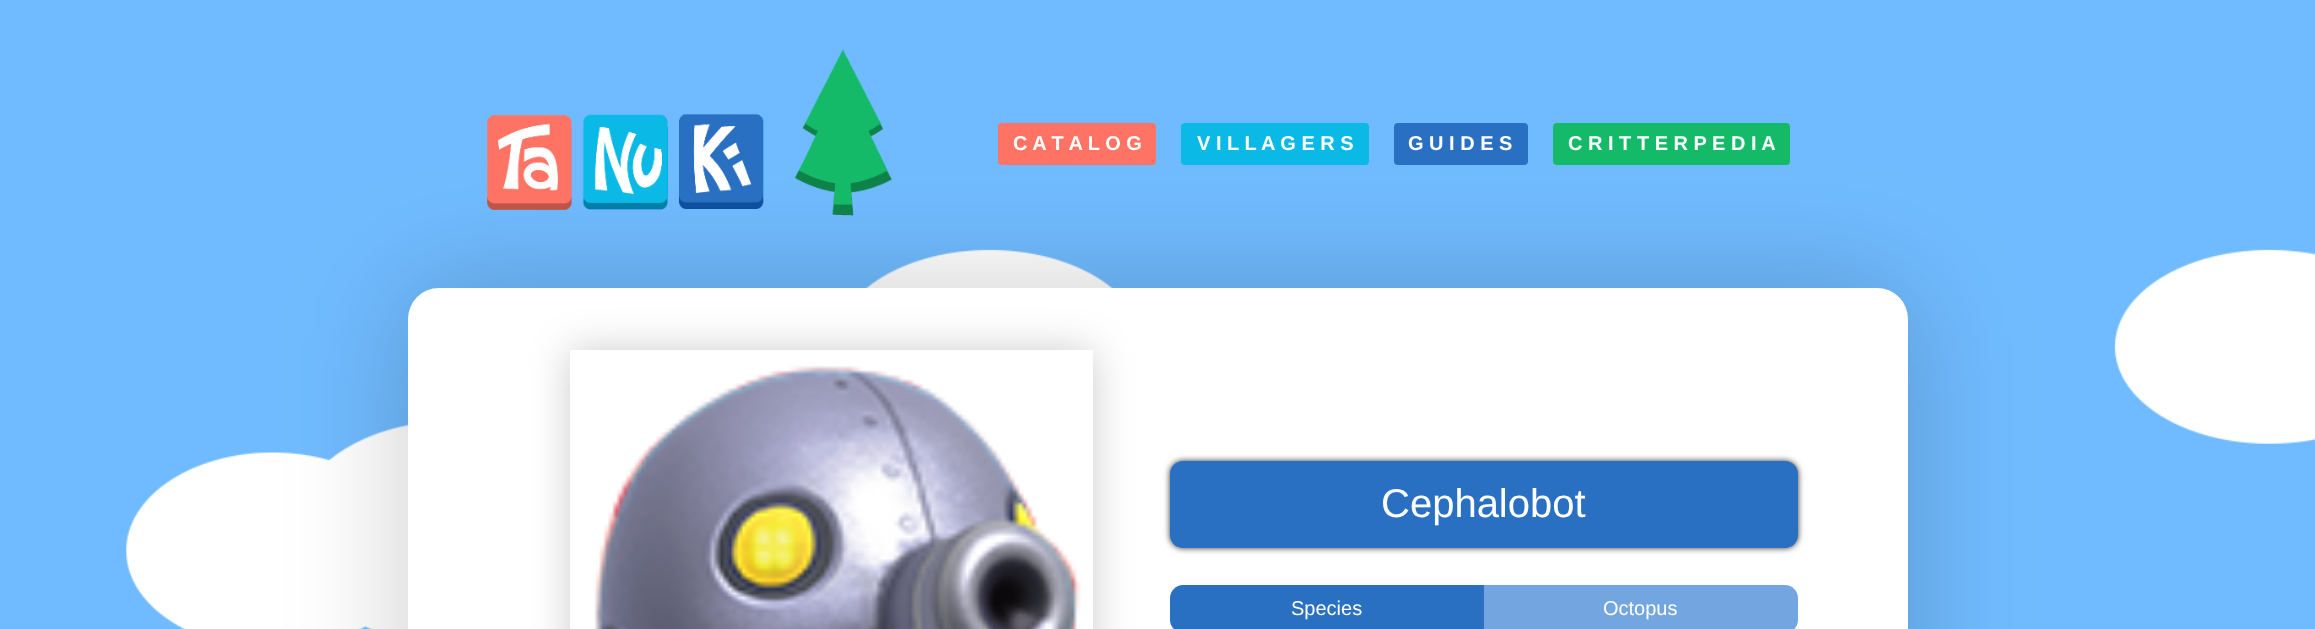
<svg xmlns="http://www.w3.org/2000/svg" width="2315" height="629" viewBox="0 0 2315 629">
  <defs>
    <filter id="blur1" x="-50%" y="-200%" width="200%" height="500%"><feGaussianBlur stdDeviation="60"/></filter>
    <filter id="blur2" x="-50%" y="-200%" width="200%" height="500%"><feGaussianBlur stdDeviation="20"/></filter>
    <filter id="blur3" x="-50%" y="-200%" width="200%" height="500%"><feGaussianBlur stdDeviation="3"/></filter>
  </defs>
  <rect width="100%" height="100%" fill="#ffffff"/>
  <image x="0" y="0" width="2315" height="629" href="img1.png"/>
  <rect x="408" y="288" width="1500" height="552" rx="31" fill="#000000" fill-opacity="0.2" filter="url(#blur1)"/>
  <image x="487" y="49" width="405" height="167" href="img2.png"/>
  <rect x="998" y="123" width="158" height="42" rx="4" fill="#ff7365"/>
  <text x="1013" y="150" font-family="Liberation Sans" font-size="20" font-weight="bold" fill="#ffffff">C A T A L O G</text>
  <rect x="1181" y="123" width="188" height="42" rx="4" fill="#0ab9e6"/>
  <text x="1197" y="150" font-family="Liberation Sans" font-size="20" font-weight="bold" fill="#ffffff">V I L L A G E R S</text>
  <rect x="1394" y="123" width="134" height="42" rx="4" fill="#2a70c2"/>
  <text x="1408" y="150" font-family="Liberation Sans" font-size="20" font-weight="bold" fill="#ffffff">G U I D E S</text>
  <rect x="1553" y="123" width="237" height="42" rx="4" fill="#15ba68"/>
  <text x="1568" y="150" font-family="Liberation Sans" font-size="20" font-weight="bold" fill="#ffffff">C R I T T E R P E D I A</text>
  <rect x="408" y="288" width="1500" height="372" rx="31" fill="#ffffff"/>
  <rect x="570" y="350" width="523" height="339" fill="#000000" fill-opacity="0.2" filter="url(#blur2)"/>
  <rect x="570" y="350" width="523" height="279" fill="#ffffff"/>
  <image x="594" y="366" width="487" height="263" href="img3.png"/>
  <rect x="1170" y="461" width="628" height="87" rx="13" fill="#000000" fill-opacity="0.8" filter="url(#blur3)"/>
  <rect x="1170" y="461" width="628" height="87" rx="13" fill="#2a70c2"/>
  <text x="1381" y="517" font-family="Liberation Sans" font-size="40" fill="#ffffff">Cephalobot</text>
  <path d="M1183 585H1484V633H1183C1176 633 1170 627 1170 620V598C1170 591 1176 585 1183 585Z" fill="#2a70c2"/>
  <text x="1291" y="615" font-family="Liberation Sans" font-size="20" fill="#ffffff">Species</text>
  <path d="M1484 585H1785C1792 585 1798 591 1798 598V620C1798 627 1792 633 1785 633H1484Z" fill="#73a6e0"/>
  <text x="1603" y="615" font-family="Liberation Sans" font-size="20" fill="#ffffff">Octopus</text>
</svg>
